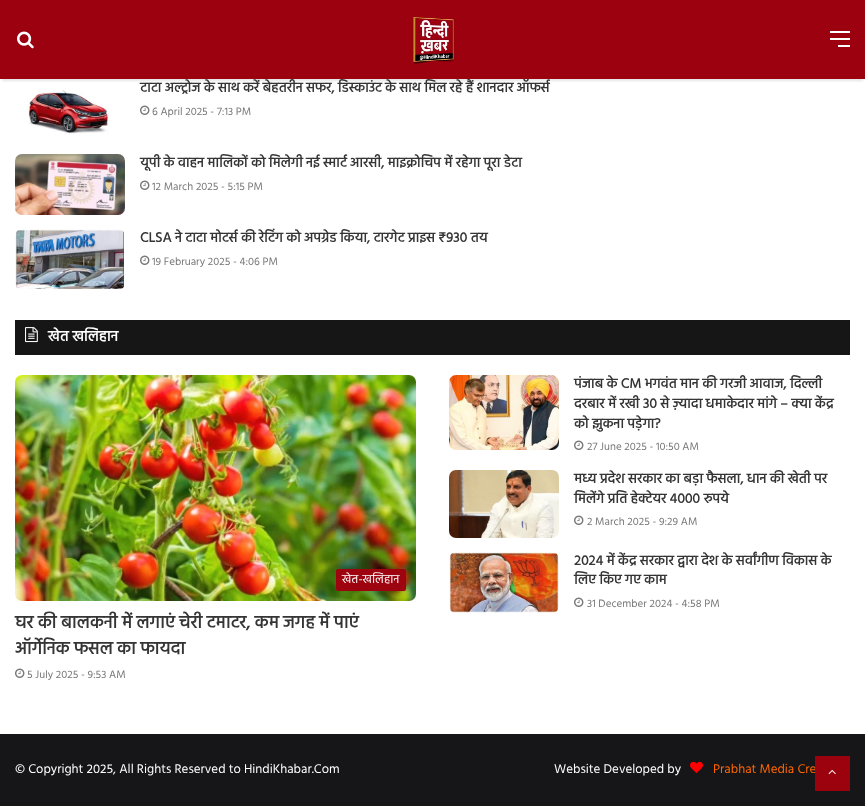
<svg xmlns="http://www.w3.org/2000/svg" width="865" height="806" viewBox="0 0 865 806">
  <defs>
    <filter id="blur1" x="-50%" y="-200%" width="200%" height="500%"><feGaussianBlur stdDeviation="1"/></filter>
  </defs>
  <rect width="100%" height="100%" fill="#ffffff"/>
  <rect x="2" y="6" width="861" height="75" fill="#000000" fill-opacity="0.1" filter="url(#blur1)"/>
  <rect x="0" y="0" width="865" height="79" fill="#9c0110"/>
  <image x="17" y="31" width="17" height="18" href="img1.png"/>
  <image x="411" y="14" width="44" height="51" href="img2.png"/>
  <rect x="830" y="38" width="20" height="2" fill="#ffffff"/>
  <rect x="830" y="31" width="20" height="2" fill="#ffffff"/>
  <rect x="838" y="45" width="12" height="2" fill="#ffffff"/>
  <image x="27" y="90" width="82" height="44" href="img3.png"/>
  <text x="140" y="92" font-family="Hind" font-size="14" font-weight="bold" fill="#353535">टाटा अल्ट्रोज के साथ करें बेहतरीन सफर, डिस्काउंट के साथ मिल रहे हैं शानदार ऑफर्स</text>
  <image x="140" y="105" width="10" height="10" href="img4.png"/>
  <text x="152" y="115" font-family="Hind" font-size="11" fill="#777777">6 April 2025 - 7:13 PM</text>
  <image x="15" y="154" width="110" height="61" href="img5.png"/>
  <text x="140" y="167" font-family="Hind" font-size="14" font-weight="bold" fill="#353535">यूपी के वाहन मालिकों को मिलेगी नई स्मार्ट आरसी, माइक्रोचिप में रहेगा पूरा डेटा</text>
  <image x="140" y="180" width="10" height="10" href="img4.png"/>
  <text x="152" y="190" font-family="Hind" font-size="11" fill="#777777">12 March 2025 - 5:15 PM</text>
  <image x="15" y="229" width="110" height="61" href="img6.png"/>
  <text x="140" y="242" font-family="Hind" font-size="14" font-weight="bold" fill="#353535">CLSA ने टाटा मोटर्स की रेटिंग को अपग्रेड किया, टारगेट प्राइस ₹930 तय</text>
  <image x="140" y="255" width="10" height="10" href="img4.png"/>
  <text x="152" y="265" font-family="Hind" font-size="11" fill="#777777">19 February 2025 - 4:06 PM</text>
  <rect x="15" y="320" width="835" height="35" fill="#161616"/>
  <image x="25" y="327" width="13" height="16" href="img7.png"/>
  <text x="48" y="341" font-family="Hind" font-size="15" font-weight="bold" fill="#ffffff">खेत खलिहान</text>
  <image x="449" y="375" width="110" height="75" href="img8.png"/>
  <text x="574" y="388" font-family="Hind" font-size="14" font-weight="bold" fill="#353535">पंजाब के CM भगवंत मान की गरजी आवाज, दिल्ली</text>
  <text x="574" y="408" font-family="Hind" font-size="14" font-weight="bold" fill="#353535">दरबार में रखी 30 से ज़्यादा धमाकेदार मांगे – क्या केंद्र</text>
  <text x="574" y="428" font-family="Hind" font-size="14" font-weight="bold" fill="#353535">को झुकना पड़ेगा?</text>
  <image x="574" y="440" width="10" height="10" href="img4.png"/>
  <text x="587" y="450" font-family="Hind" font-size="11" fill="#777777">27 June 2025 - 10:50 AM</text>
  <image x="449" y="470" width="110" height="68" href="img9.png"/>
  <text x="574" y="483" font-family="Hind" font-size="14" font-weight="bold" fill="#353535">मध्य प्रदेश सरकार का बड़ा फैसला, धान की खेती पर</text>
  <text x="574" y="503" font-family="Hind" font-size="14" font-weight="bold" fill="#353535">मिलेंगे प्रति हेक्टेयर 4000 रुपये</text>
  <image x="574" y="515" width="10" height="10" href="img4.png"/>
  <text x="587" y="525" font-family="Hind" font-size="11" fill="#777777">2 March 2025 - 9:29 AM</text>
  <image x="15" y="375" width="401" height="226" href="img10.png"/>
  <rect x="336" y="569" width="70" height="22" rx="2" fill="#9d0410"/>
  <text x="342" y="583" font-family="Hind" font-size="12" fill="#ffffff">खेत-खलिहान</text>
  <text x="15" y="628" font-family="Hind" font-size="18" font-weight="bold" fill="#353535">घर की बालकनी में लगाएं चेरी टमाटर, कम जगह में पाएं</text>
  <text x="15" y="654" font-family="Hind" font-size="18" font-weight="bold" fill="#353535">ऑर्गेनिक फसल का फायदा</text>
  <image x="15" y="668" width="10" height="10" href="img4.png"/>
  <text x="27" y="678" font-family="Hind" font-size="11" fill="#777777">5 July 2025 - 9:53 AM</text>
  <image x="449" y="552" width="110" height="61" href="img11.png"/>
  <text x="574" y="565" font-family="Hind" font-size="14" font-weight="bold" fill="#353535">2024 में केंद्र सरकार द्वारा देश के सर्वांगीण विकास के</text>
  <text x="574" y="584" font-family="Hind" font-size="14" font-weight="bold" fill="#353535">लिए किए गए काम</text>
  <image x="574" y="597" width="10" height="10" href="img4.png"/>
  <text x="587" y="607" font-family="Hind" font-size="11" fill="#777777">31 December 2024 - 4:58 PM</text>
  <rect x="0" y="734" width="865" height="72" fill="#161619"/>
  <text x="15" y="773" font-family="Hind" font-size="13" fill="#ffffff">© Copyright 2025, All Rights Reserved to HindiKhabar.Com</text>
  <text x="554" y="773" font-family="Hind" font-size="13" fill="#ffffff">Website Developed by</text>
  <image x="690" y="761" width="13" height="12" href="img12.png"/>
  <text x="713" y="773" font-family="Hind" font-size="13" fill="#ff6600">Prabhat Media Cre</text>
  <rect x="815" y="756" width="35" height="35" fill="#9c010e"/>
  <image x="828" y="769" width="8" height="6" href="img13.png"/>
</svg>
